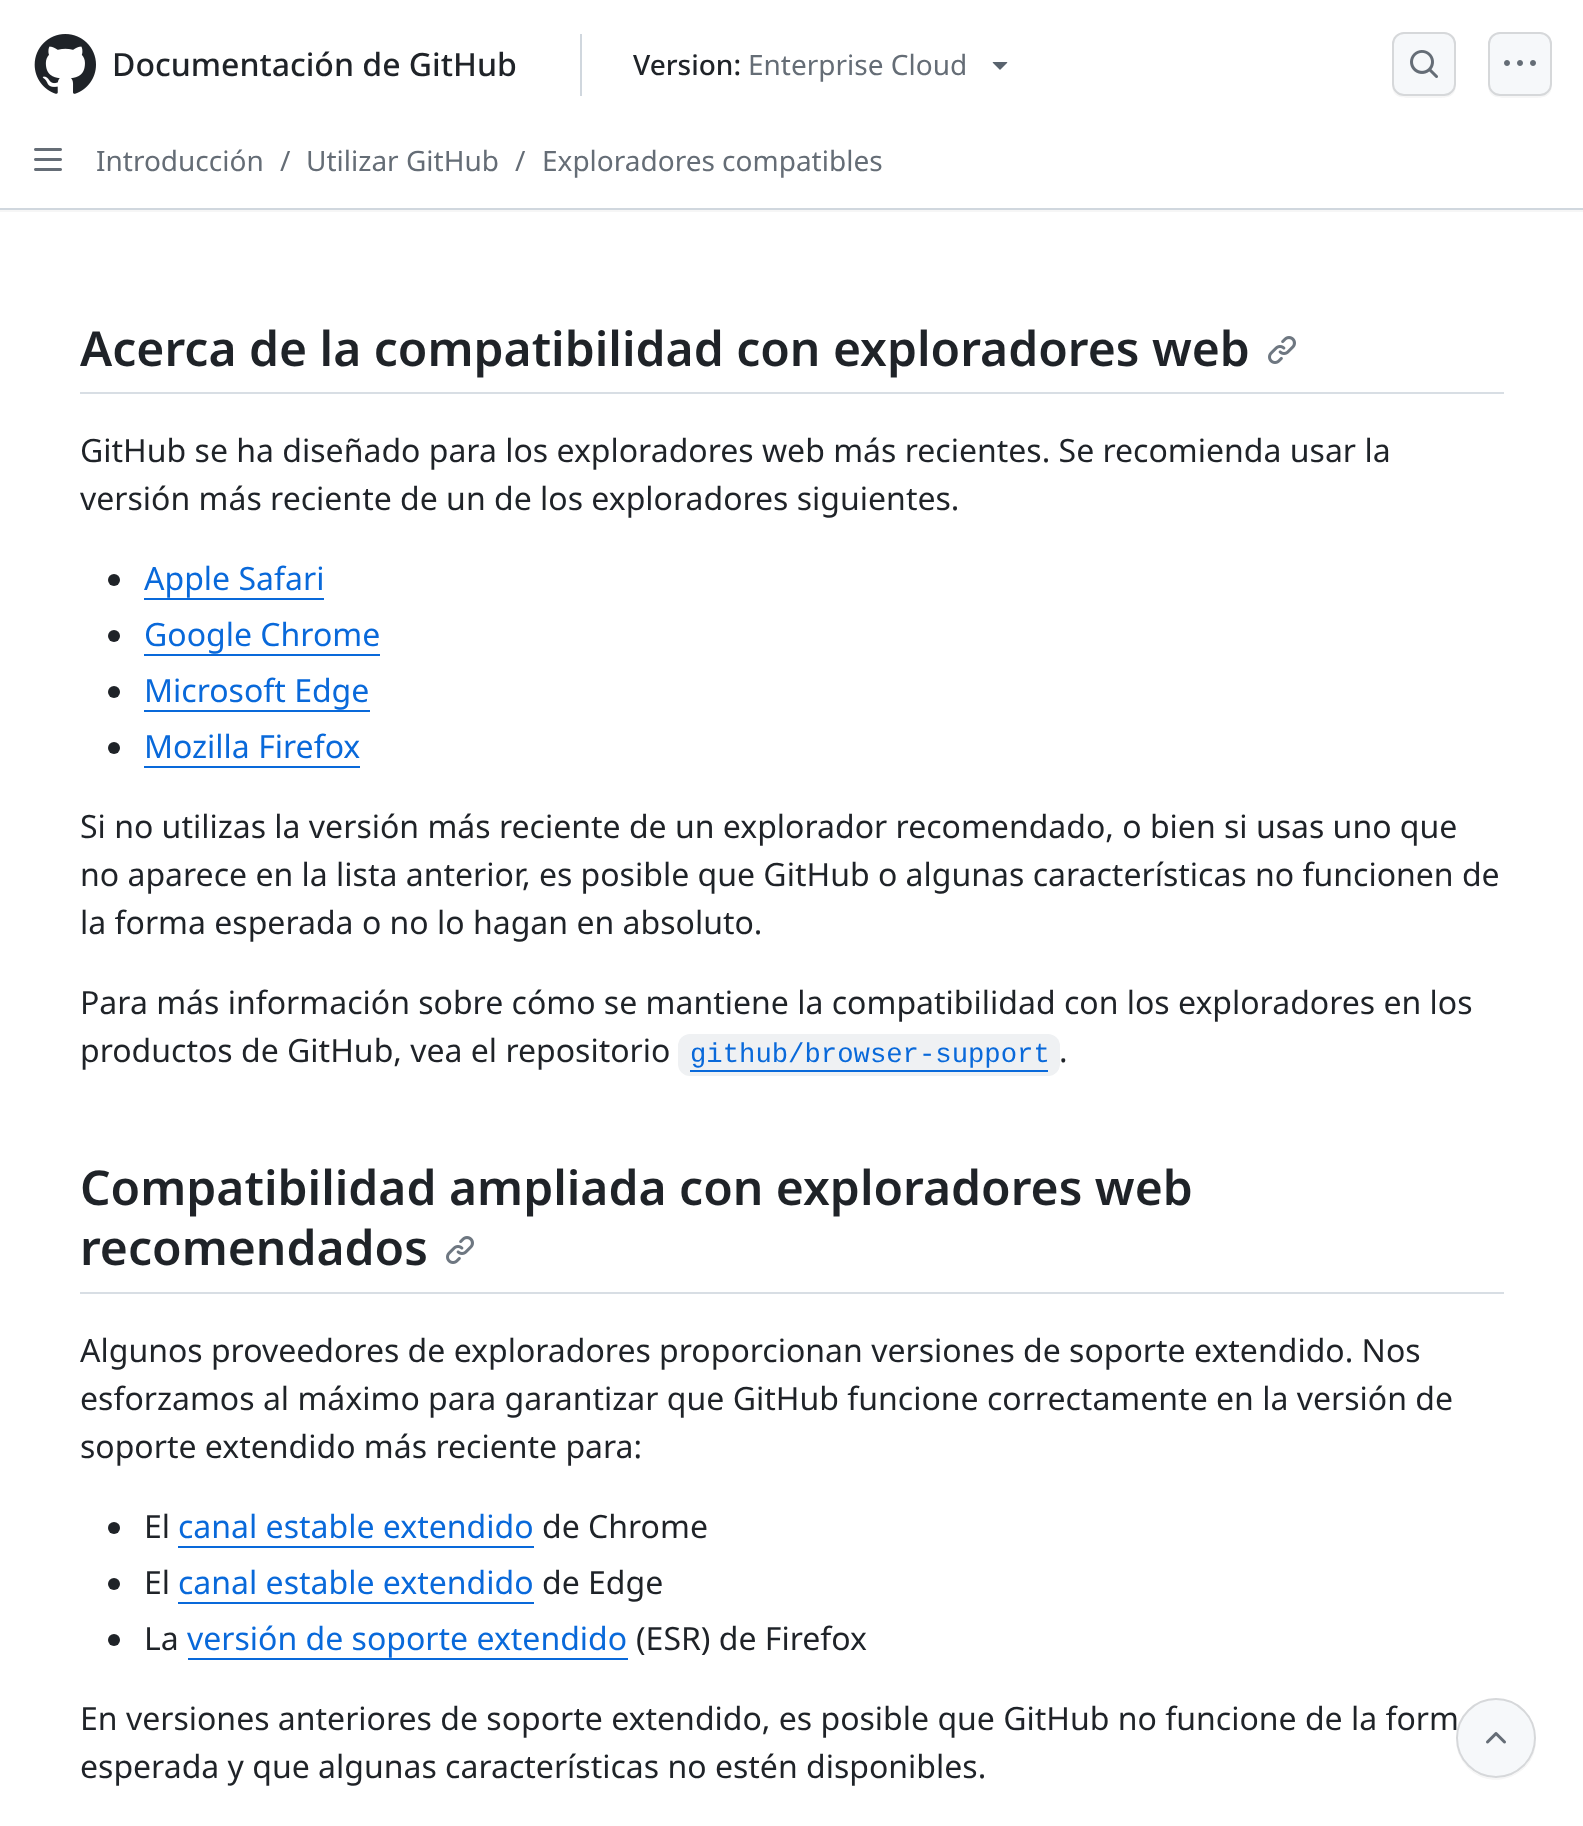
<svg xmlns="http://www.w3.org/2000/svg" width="1583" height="1826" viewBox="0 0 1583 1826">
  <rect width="100%" height="100%" fill="#ffffff"/>
  <rect x="0" y="210" width="1583" height="2" fill="#f6f6f6"/>
  <rect x="0" y="208" width="1583" height="2" fill="#d0d7de"/>
  <image x="34" y="34" width="62" height="60" href="img1.png"/>
  <text x="112" y="76" font-family="Noto Sans" font-size="32" font-weight="500" fill="#1f2328">Documentación de GitHub</text>
  <rect x="580" y="34" width="2" height="62" fill="#d0d7de"/>
  <text x="633" y="75" font-family="Noto Sans" font-size="28" font-weight="500" fill="#1f2328">Version:</text>
  <text x="748" y="75" font-family="Noto Sans" font-size="28" fill="#656d76">Enterprise Cloud</text>
  <image x="992" y="62" width="16" height="8" href="img2.png"/>
  <path d="M1392 84C1392 97 1400 98 1411 98H1437C1448 98 1456 97 1456 84C1456 91 1451 96 1444 96H1404C1397 96 1392 91 1392 84Z" fill="#f6f6f6"/>
  <rect x="1392" y="32" width="64" height="64" rx="12" fill="#f6f8fa"/>
  <rect x="1393" y="33" width="62" height="62" rx="11" fill="none" stroke="#1f2328" stroke-opacity="0.15" stroke-width="2"/>
  <image x="1410" y="50" width="28" height="28" href="img3.png"/>
  <path d="M1488 84C1488 97 1496 98 1507 98H1533C1544 98 1552 97 1552 84C1552 91 1547 96 1540 96H1500C1493 96 1488 91 1488 84Z" fill="#f6f6f6"/>
  <rect x="1488" y="32" width="64" height="64" rx="12" fill="#f6f8fa"/>
  <rect x="1489" y="33" width="62" height="62" rx="11" fill="none" stroke="#1f2328" stroke-opacity="0.15" stroke-width="2"/>
  <image x="1504" y="60" width="32" height="6" href="img4.png"/>
  <image x="34" y="148" width="28" height="23" href="img5.png"/>
  <text x="96" y="171" font-family="Noto Sans" font-size="28" fill="#656d76">Introducción</text>
  <text x="280" y="171" font-family="Noto Sans" font-size="28" fill="#656d76">/</text>
  <text x="306" y="171" font-family="Noto Sans" font-size="28" fill="#656d76">Utilizar GitHub</text>
  <text x="515" y="171" font-family="Noto Sans" font-size="28" fill="#656d76">/</text>
  <text x="542" y="171" font-family="Noto Sans" font-size="28" fill="#656d76">Exploradores compatibles</text>
  <rect x="80" y="392" width="1424" height="2" fill="#d8dee4"/>
  <text x="80" y="366" font-family="Noto Sans" font-size="48" font-weight="600" fill="#1f2328">Acerca de la compatibilidad con exploradores web</text>
  <image x="1268" y="336" width="28" height="28" href="img6.png"/>
  <text x="80" y="462" font-family="Noto Sans" font-size="32" fill="#1f2328">GitHub se ha diseñado para los exploradores web más recientes. Se recomienda usar la</text>
  <text x="80" y="510" font-family="Noto Sans" font-size="32" fill="#1f2328">versión más reciente de un de los exploradores siguientes.</text>
  <circle cx="114" cy="580" r="6" fill="#1f2328"/>
  <text x="144" y="590" font-family="Noto Sans" font-size="32" fill="#0969da">Apple Safari</text>
  <rect x="144" y="598" width="180" height="2" fill="#0969da"/>
  <circle cx="114" cy="636" r="6" fill="#1f2328"/>
  <text x="144" y="646" font-family="Noto Sans" font-size="32" fill="#0969da">Google Chrome</text>
  <rect x="144" y="654" width="236" height="2" fill="#0969da"/>
  <circle cx="114" cy="692" r="6" fill="#1f2328"/>
  <text x="144" y="702" font-family="Noto Sans" font-size="32" fill="#0969da">Microsoft Edge</text>
  <rect x="144" y="710" width="226" height="2" fill="#0969da"/>
  <circle cx="114" cy="748" r="6" fill="#1f2328"/>
  <text x="144" y="758" font-family="Noto Sans" font-size="32" fill="#0969da">Mozilla Firefox</text>
  <rect x="144" y="766" width="216" height="2" fill="#0969da"/>
  <text x="80" y="838" font-family="Noto Sans" font-size="32" fill="#1f2328">Si no utilizas la versión más reciente de un explorador recomendado, o bien si usas uno que</text>
  <text x="80" y="886" font-family="Noto Sans" font-size="32" fill="#1f2328">no aparece en la lista anterior, es posible que GitHub o algunas características no funcionen de</text>
  <text x="80" y="934" font-family="Noto Sans" font-size="32" fill="#1f2328">la forma esperada o no lo hagan en absoluto.</text>
  <text x="80" y="1014" font-family="Noto Sans" font-size="32" fill="#1f2328">Para más información sobre cómo se mantiene la compatibilidad con los exploradores en los</text>
  <text x="80" y="1062" font-family="Noto Sans" font-size="32" fill="#1f2328">productos de GitHub, vea el repositorio</text>
  <rect x="678" y="1034" width="382" height="42" rx="12" fill="#eff1f3"/>
  <text x="690" y="1062" font-family="Liberation Mono" font-size="27.25" fill="#0969da">github/browser-support</text>
  <rect x="690" y="1070" width="358" height="2" fill="#0969da"/>
  <text x="1059" y="1062" font-family="Noto Sans" font-size="32" fill="#1f2328">.</text>
  <rect x="80" y="1292" width="1424" height="2" fill="#d8dee4"/>
  <text x="80" y="1205" font-family="Noto Sans" font-size="48" font-weight="600" fill="#1f2328">Compatibilidad ampliada con exploradores web</text>
  <text x="80" y="1265" font-family="Noto Sans" font-size="48" font-weight="600" fill="#1f2328">recomendados</text>
  <image x="446" y="1236" width="28" height="28" href="img6.png"/>
  <text x="80" y="1362" font-family="Noto Sans" font-size="32" fill="#1f2328">Algunos proveedores de exploradores proporcionan versiones de soporte extendido. Nos</text>
  <text x="80" y="1410" font-family="Noto Sans" font-size="32" fill="#1f2328">esforzamos al máximo para garantizar que GitHub funcione correctamente en la versión de</text>
  <text x="80" y="1458" font-family="Noto Sans" font-size="32" fill="#1f2328">soporte extendido más reciente para:</text>
  <circle cx="114" cy="1528" r="6" fill="#1f2328"/>
  <text x="144" y="1538" font-family="Noto Sans" font-size="32" fill="#1f2328">El</text>
  <text x="178" y="1538" font-family="Noto Sans" font-size="32" fill="#0969da">canal estable extendido</text>
  <rect x="178" y="1546" width="356" height="2" fill="#0969da"/>
  <text x="542" y="1538" font-family="Noto Sans" font-size="32" fill="#1f2328">de Chrome</text>
  <circle cx="114" cy="1584" r="6" fill="#1f2328"/>
  <text x="144" y="1594" font-family="Noto Sans" font-size="32" fill="#1f2328">El</text>
  <text x="178" y="1594" font-family="Noto Sans" font-size="32" fill="#0969da">canal estable extendido</text>
  <rect x="178" y="1602" width="356" height="2" fill="#0969da"/>
  <text x="542" y="1594" font-family="Noto Sans" font-size="32" fill="#1f2328">de Edge</text>
  <circle cx="114" cy="1640" r="6" fill="#1f2328"/>
  <text x="144" y="1650" font-family="Noto Sans" font-size="32" fill="#1f2328">La</text>
  <text x="187" y="1650" font-family="Noto Sans" font-size="32" fill="#0969da">versión de soporte extendido</text>
  <rect x="188" y="1658" width="440" height="2" fill="#0969da"/>
  <text x="636" y="1650" font-family="Noto Sans" font-size="32" fill="#1f2328">(ESR) de Firefox</text>
  <text x="80" y="1730" font-family="Noto Sans" font-size="32" fill="#1f2328">En versiones anteriores de soporte extendido, es posible que GitHub no funcione de la form</text>
  <text x="80" y="1778" font-family="Noto Sans" font-size="32" fill="#1f2328">esperada y que algunas características no estén disponibles.</text>
  <path d="M1456 1739C1456 1747 1458 1755 1463 1762C1485 1795 1537 1779 1536 1739C1535 1761 1518 1778 1496 1778C1474 1778 1457 1761 1456 1739Z" fill="#f6f6f6"/>
  <circle cx="1496" cy="1738" r="40" fill="#f6f8fa"/>
  <circle cx="1496" cy="1738" r="39" fill="none" stroke="#1f2328" stroke-opacity="0.15" stroke-width="2"/>
  <image x="1486" y="1732" width="20" height="12" href="img7.png"/>
</svg>
